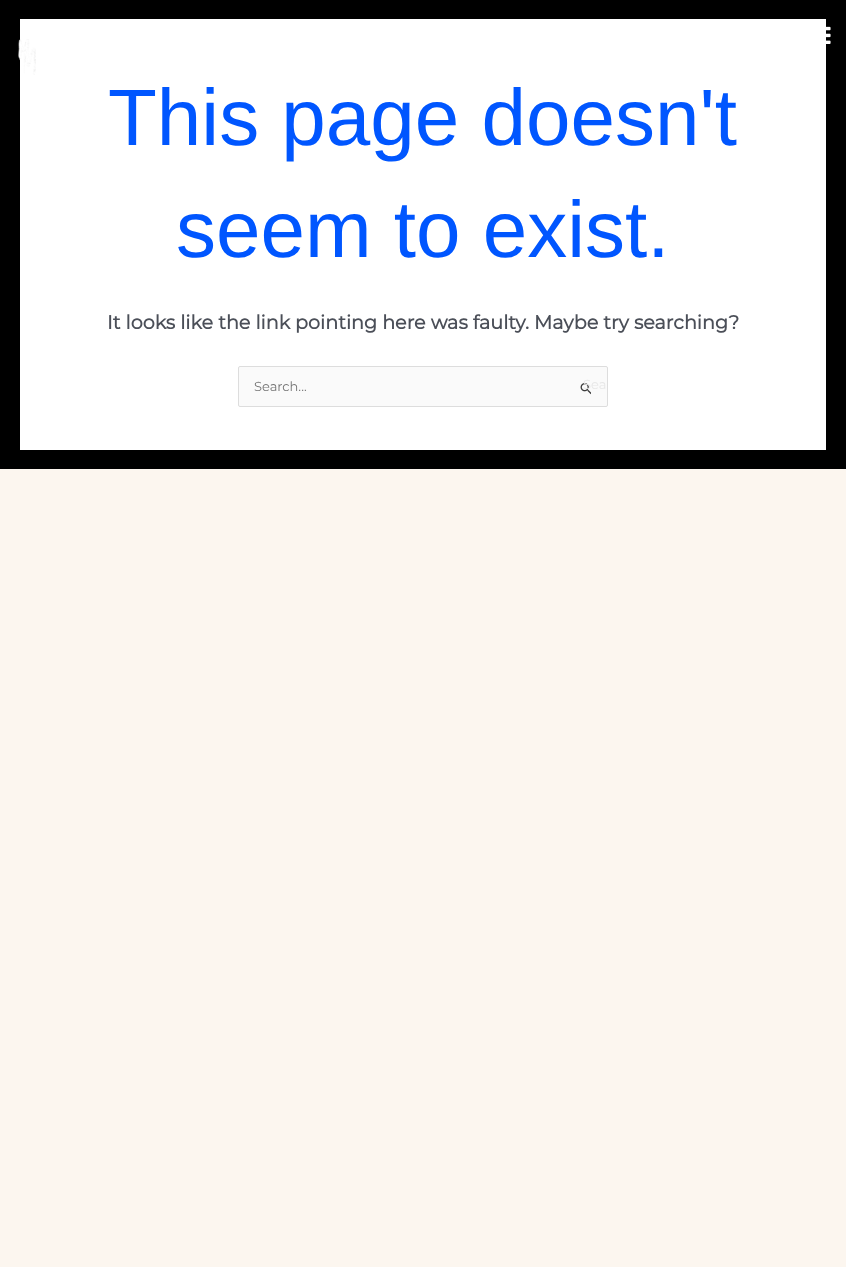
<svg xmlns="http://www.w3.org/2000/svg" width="846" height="1267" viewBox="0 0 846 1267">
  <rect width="100%" height="100%" fill="#fcf6ef"/>
  <rect x="0" y="0" width="846" height="469" fill="#000000"/>
  <image x="826" y="26" width="5" height="18" href="img1.png"/>
  <rect x="20" y="19" width="806" height="431" fill="#ffffff"/>
  <image x="18" y="39" width="18" height="36" href="img2.png"/>
  <text x="108" y="145" font-family="Liberation Sans" font-size="80" fill="#0056ff">This page doesn't</text>
  <text x="176" y="257" font-family="Liberation Sans" font-size="80" fill="#0056ff">seem to exist.</text>
  <text x="107" y="329" font-family="Montserrat" font-size="19.15" font-weight="bold" fill="#4b4f58">It looks like the link pointing here was faulty. Maybe try searching?</text>
  <rect x="238.5" y="366.5" width="369" height="40" rx="1.5" fill="#fafafa" stroke="#dddddd"/>
  <text x="254" y="391" font-family="Montserrat" font-size="13" font-weight="100" fill="#757575">Search...</text>
  <image x="580" y="383" width="11" height="12" href="img3.png"/>
  <text x="583" y="389" font-family="Montserrat" font-size="13" font-weight="100" fill="#e7e7e7">Sea</text>
</svg>
